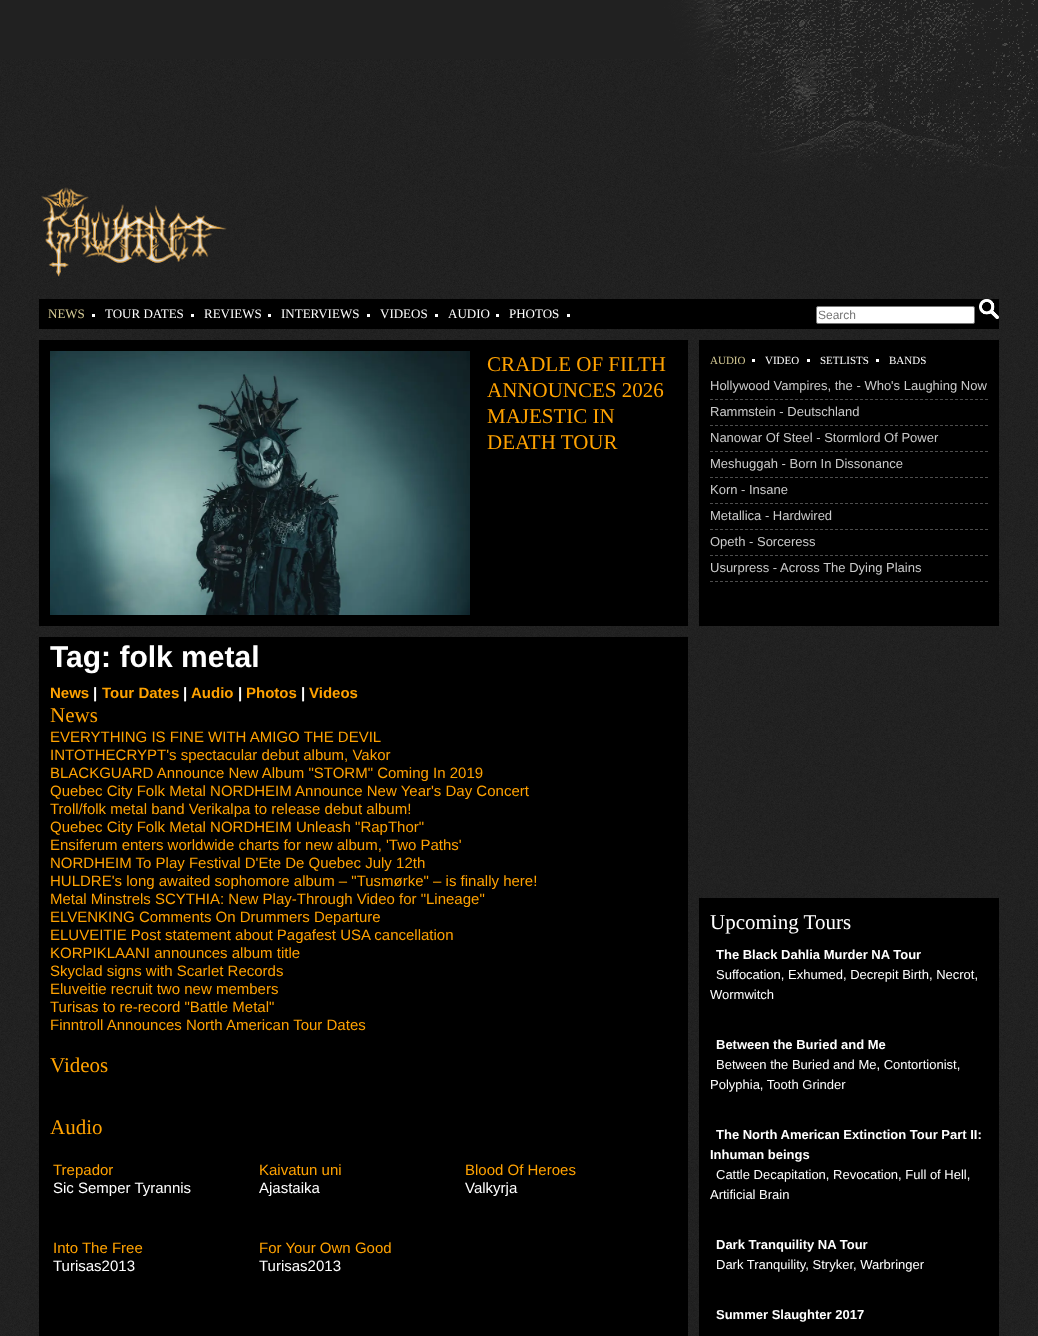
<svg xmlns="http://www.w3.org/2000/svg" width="1038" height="1336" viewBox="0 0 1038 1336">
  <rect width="100%" height="100%" fill="#ffffff"/>
  <image x="0" y="294" width="1038" height="1042" href="img1.png"/>
  <image x="0" y="0" width="1038" height="294" href="img2.png"/>
  <image x="41" y="187" width="186" height="90" href="img3.png"/>
  <rect x="39" y="299" width="960" height="30" fill="#000000"/>
  <rect x="92" y="314" width="3" height="3" fill="#ffffff"/>
  <text x="48" y="318" font-family="Liberation Serif" font-size="13" fill="#d7cc96">NEWS</text>
  <rect x="191" y="314" width="3" height="3" fill="#ffffff"/>
  <text x="105" y="318" font-family="Liberation Serif" font-size="13" fill="#ffffff">TOUR DATES</text>
  <rect x="268" y="314" width="3" height="3" fill="#ffffff"/>
  <text x="204" y="318" font-family="Liberation Serif" font-size="13" fill="#ffffff">REVIEWS</text>
  <rect x="367" y="314" width="3" height="3" fill="#ffffff"/>
  <text x="281" y="318" font-family="Liberation Serif" font-size="13" fill="#ffffff">INTERVIEWS</text>
  <rect x="435" y="314" width="3" height="3" fill="#ffffff"/>
  <text x="380" y="318" font-family="Liberation Serif" font-size="13" fill="#ffffff">VIDEOS</text>
  <rect x="496" y="314" width="3" height="3" fill="#ffffff"/>
  <text x="448" y="318" font-family="Liberation Serif" font-size="13" fill="#ffffff">AUDIO</text>
  <rect x="567" y="314" width="3" height="3" fill="#ffffff"/>
  <text x="509" y="318" font-family="Liberation Serif" font-size="13" fill="#ffffff">PHOTOS</text>
  <rect x="816.5" y="306.5" width="158" height="17" rx="1.5" fill="#ffffff" stroke="#767676"/>
  <text x="818" y="319" font-family="Liberation Sans" font-size="12" fill="#757575">Search</text>
  <image x="979" y="299" width="20" height="20" href="img4.png"/>
  <rect x="39" y="340" width="649" height="286" fill="#000000"/>
  <image x="50" y="351" width="420" height="264" href="img5.png"/>
  <text x="487" y="371" font-family="Liberation Serif" font-size="21" fill="#ffa200">CRADLE OF FILTH</text>
  <text x="487" y="397" font-family="Liberation Serif" font-size="21" fill="#ffa200">ANNOUNCES 2026</text>
  <text x="487" y="423" font-family="Liberation Serif" font-size="21" fill="#ffa200">MAJESTIC IN</text>
  <text x="487" y="449" font-family="Liberation Serif" font-size="21" fill="#ffa200">DEATH TOUR</text>
  <rect x="39" y="637" width="649" height="699" fill="#000000"/>
  <text x="50" y="667" font-family="Liberation Sans" font-size="30" font-weight="bold" fill="#ffffff">Tag: folk metal</text>
  <text x="50" y="698" font-family="Liberation Sans" font-size="15" font-weight="bold" fill="#ffa200">News</text>
  <text x="93" y="698" font-family="Liberation Sans" font-size="15" font-weight="bold" fill="#ffffff">|</text>
  <text x="102" y="698" font-family="Liberation Sans" font-size="15" font-weight="bold" fill="#ffa200">Tour Dates</text>
  <text x="183" y="698" font-family="Liberation Sans" font-size="15" font-weight="bold" fill="#ffffff">|</text>
  <text x="191" y="698" font-family="Liberation Sans" font-size="15" font-weight="bold" fill="#ffa200">Audio</text>
  <text x="238" y="698" font-family="Liberation Sans" font-size="15" font-weight="bold" fill="#ffffff">|</text>
  <text x="246" y="698" font-family="Liberation Sans" font-size="15" font-weight="bold" fill="#ffa200">Photos</text>
  <text x="301" y="698" font-family="Liberation Sans" font-size="15" font-weight="bold" fill="#ffffff">|</text>
  <text x="309" y="698" font-family="Liberation Sans" font-size="15" font-weight="bold" fill="#ffa200">Videos</text>
  <text x="50" y="722" font-family="Liberation Serif" font-size="21" fill="#ffa200">News</text>
  <text x="50" y="742" font-family="Liberation Sans" font-size="15" fill="#ffa200">EVERYTHING IS FINE WITH AMIGO THE DEVIL</text>
  <text x="50" y="760" font-family="Liberation Sans" font-size="15" fill="#ffa200">INTOTHECRYPT's spectacular debut album, Vakor</text>
  <text x="50" y="778" font-family="Liberation Sans" font-size="15" fill="#ffa200">BLACKGUARD Announce New Album "STORM" Coming In 2019</text>
  <text x="50" y="796" font-family="Liberation Sans" font-size="15" fill="#ffa200">Quebec City Folk Metal NORDHEIM Announce New Year's Day Concert</text>
  <text x="50" y="814" font-family="Liberation Sans" font-size="15" fill="#ffa200">Troll/folk metal band Verikalpa to release debut album!</text>
  <text x="50" y="832" font-family="Liberation Sans" font-size="15" fill="#ffa200">Quebec City Folk Metal NORDHEIM Unleash "RapThor"</text>
  <text x="50" y="850" font-family="Liberation Sans" font-size="15" fill="#ffa200">Ensiferum enters worldwide charts for new album, 'Two Paths'</text>
  <text x="50" y="868" font-family="Liberation Sans" font-size="15" fill="#ffa200">NORDHEIM To Play Festival D'Ete De Quebec July 12th</text>
  <text x="50" y="886" font-family="Liberation Sans" font-size="15" fill="#ffa200">HULDRE's long awaited sophomore album – "Tusmørke" – is finally here!</text>
  <text x="50" y="904" font-family="Liberation Sans" font-size="15" fill="#ffa200">Metal Minstrels SCYTHIA: New Play-Through Video for "Lineage"</text>
  <text x="50" y="922" font-family="Liberation Sans" font-size="15" fill="#ffa200">ELVENKING Comments On Drummers Departure</text>
  <text x="50" y="940" font-family="Liberation Sans" font-size="15" fill="#ffa200">ELUVEITIE Post statement about Pagafest USA cancellation</text>
  <text x="50" y="958" font-family="Liberation Sans" font-size="15" fill="#ffa200">KORPIKLAANI announces album title</text>
  <text x="50" y="976" font-family="Liberation Sans" font-size="15" fill="#ffa200">Skyclad signs with Scarlet Records</text>
  <text x="50" y="994" font-family="Liberation Sans" font-size="15" fill="#ffa200">Eluveitie recruit two new members</text>
  <text x="50" y="1012" font-family="Liberation Sans" font-size="15" fill="#ffa200">Turisas to re-record "Battle Metal"</text>
  <text x="50" y="1030" font-family="Liberation Sans" font-size="15" fill="#ffa200">Finntroll Announces North American Tour Dates</text>
  <text x="50" y="1072" font-family="Liberation Serif" font-size="21" fill="#ffa200">Videos</text>
  <text x="50" y="1134" font-family="Liberation Serif" font-size="21" fill="#ffa200">Audio</text>
  <text x="53" y="1175" font-family="Liberation Sans" font-size="15" fill="#ffa200">Trepador</text>
  <text x="53" y="1193" font-family="Liberation Sans" font-size="15" fill="#ffffff">Sic Semper Tyrannis</text>
  <text x="259" y="1175" font-family="Liberation Sans" font-size="15" fill="#ffa200">Kaivatun uni</text>
  <text x="259" y="1193" font-family="Liberation Sans" font-size="15" fill="#ffffff">Ajastaika</text>
  <text x="465" y="1175" font-family="Liberation Sans" font-size="15" fill="#ffa200">Blood Of Heroes</text>
  <text x="465" y="1193" font-family="Liberation Sans" font-size="15" fill="#ffffff">Valkyrja</text>
  <text x="53" y="1253" font-family="Liberation Sans" font-size="15" fill="#ffa200">Into The Free</text>
  <text x="53" y="1271" font-family="Liberation Sans" font-size="15" fill="#ffffff">Turisas2013</text>
  <text x="259" y="1253" font-family="Liberation Sans" font-size="15" fill="#ffa200">For Your Own Good</text>
  <text x="259" y="1271" font-family="Liberation Sans" font-size="15" fill="#ffffff">Turisas2013</text>
  <rect x="699" y="340" width="300" height="286" fill="#000000"/>
  <rect x="752" y="359" width="3" height="3" fill="#ffffff"/>
  <text x="710" y="364" font-family="Liberation Serif" font-size="11" fill="#d7cc96">AUDIO</text>
  <rect x="807" y="359" width="3" height="3" fill="#ffffff"/>
  <text x="765" y="364" font-family="Liberation Serif" font-size="11" fill="#ffffff">VIDEO</text>
  <rect x="876" y="359" width="3" height="3" fill="#ffffff"/>
  <text x="820" y="364" font-family="Liberation Serif" font-size="11" fill="#ffffff">SETLISTS</text>
  <text x="889" y="364" font-family="Liberation Serif" font-size="11" fill="#ffffff">BANDS</text>
  <path d="M710 399.5H988" fill="none" stroke="#4d4d4d" stroke-dasharray="3 2"/>
  <text x="710" y="390" font-family="Liberation Sans" font-size="13" fill="#cacaca">Hollywood Vampires, the - Who's Laughing Now</text>
  <path d="M710 425.5H988" fill="none" stroke="#4d4d4d" stroke-dasharray="3 2"/>
  <text x="710" y="416" font-family="Liberation Sans" font-size="13" fill="#cacaca">Rammstein - Deutschland</text>
  <path d="M710 451.5H988" fill="none" stroke="#4d4d4d" stroke-dasharray="3 2"/>
  <text x="710" y="442" font-family="Liberation Sans" font-size="13" fill="#cacaca">Nanowar Of Steel - Stormlord Of Power</text>
  <path d="M710 477.5H988" fill="none" stroke="#4d4d4d" stroke-dasharray="3 2"/>
  <text x="710" y="468" font-family="Liberation Sans" font-size="13" fill="#cacaca">Meshuggah - Born In Dissonance</text>
  <path d="M710 503.5H988" fill="none" stroke="#4d4d4d" stroke-dasharray="3 2"/>
  <text x="710" y="494" font-family="Liberation Sans" font-size="13" fill="#cacaca">Korn - Insane</text>
  <path d="M710 529.5H988" fill="none" stroke="#4d4d4d" stroke-dasharray="3 2"/>
  <text x="710" y="520" font-family="Liberation Sans" font-size="13" fill="#cacaca">Metallica - Hardwired</text>
  <path d="M710 555.5H988" fill="none" stroke="#4d4d4d" stroke-dasharray="3 2"/>
  <text x="710" y="546" font-family="Liberation Sans" font-size="13" fill="#cacaca">Opeth - Sorceress</text>
  <path d="M710 581.5H988" fill="none" stroke="#4d4d4d" stroke-dasharray="3 2"/>
  <text x="710" y="572" font-family="Liberation Sans" font-size="13" fill="#cacaca">Usurpress - Across The Dying Plains</text>
  <rect x="699" y="898" width="300" height="438" fill="#000000"/>
  <text x="710" y="929" font-family="Liberation Serif" font-size="21" fill="#ffffff">Upcoming Tours</text>
  <text x="716" y="959" font-family="Liberation Sans" font-size="13" font-weight="bold" fill="#ffffff">The Black Dahlia Murder NA Tour</text>
  <text x="716" y="979" font-family="Liberation Sans" font-size="13" fill="#ffffff">Suffocation, Exhumed, Decrepit Birth, Necrot,</text>
  <text x="710" y="999" font-family="Liberation Sans" font-size="13" fill="#ffffff">Wormwitch</text>
  <text x="716" y="1049" font-family="Liberation Sans" font-size="13" font-weight="bold" fill="#ffffff">Between the Buried and Me</text>
  <text x="716" y="1069" font-family="Liberation Sans" font-size="13" fill="#ffffff">Between the Buried and Me, Contortionist,</text>
  <text x="710" y="1089" font-family="Liberation Sans" font-size="13" fill="#ffffff">Polyphia, Tooth Grinder</text>
  <text x="716" y="1139" font-family="Liberation Sans" font-size="13" font-weight="bold" fill="#ffffff">The North American Extinction Tour Part II:</text>
  <text x="710" y="1159" font-family="Liberation Sans" font-size="13" font-weight="bold" fill="#ffffff">Inhuman beings</text>
  <text x="716" y="1179" font-family="Liberation Sans" font-size="13" fill="#ffffff">Cattle Decapitation, Revocation, Full of Hell,</text>
  <text x="710" y="1199" font-family="Liberation Sans" font-size="13" fill="#ffffff">Artificial Brain</text>
  <text x="716" y="1249" font-family="Liberation Sans" font-size="13" font-weight="bold" fill="#ffffff">Dark Tranquility NA Tour</text>
  <text x="716" y="1269" font-family="Liberation Sans" font-size="13" fill="#ffffff">Dark Tranquility, Stryker, Warbringer</text>
  <text x="716" y="1319" font-family="Liberation Sans" font-size="13" font-weight="bold" fill="#ffffff">Summer Slaughter 2017</text>
</svg>
